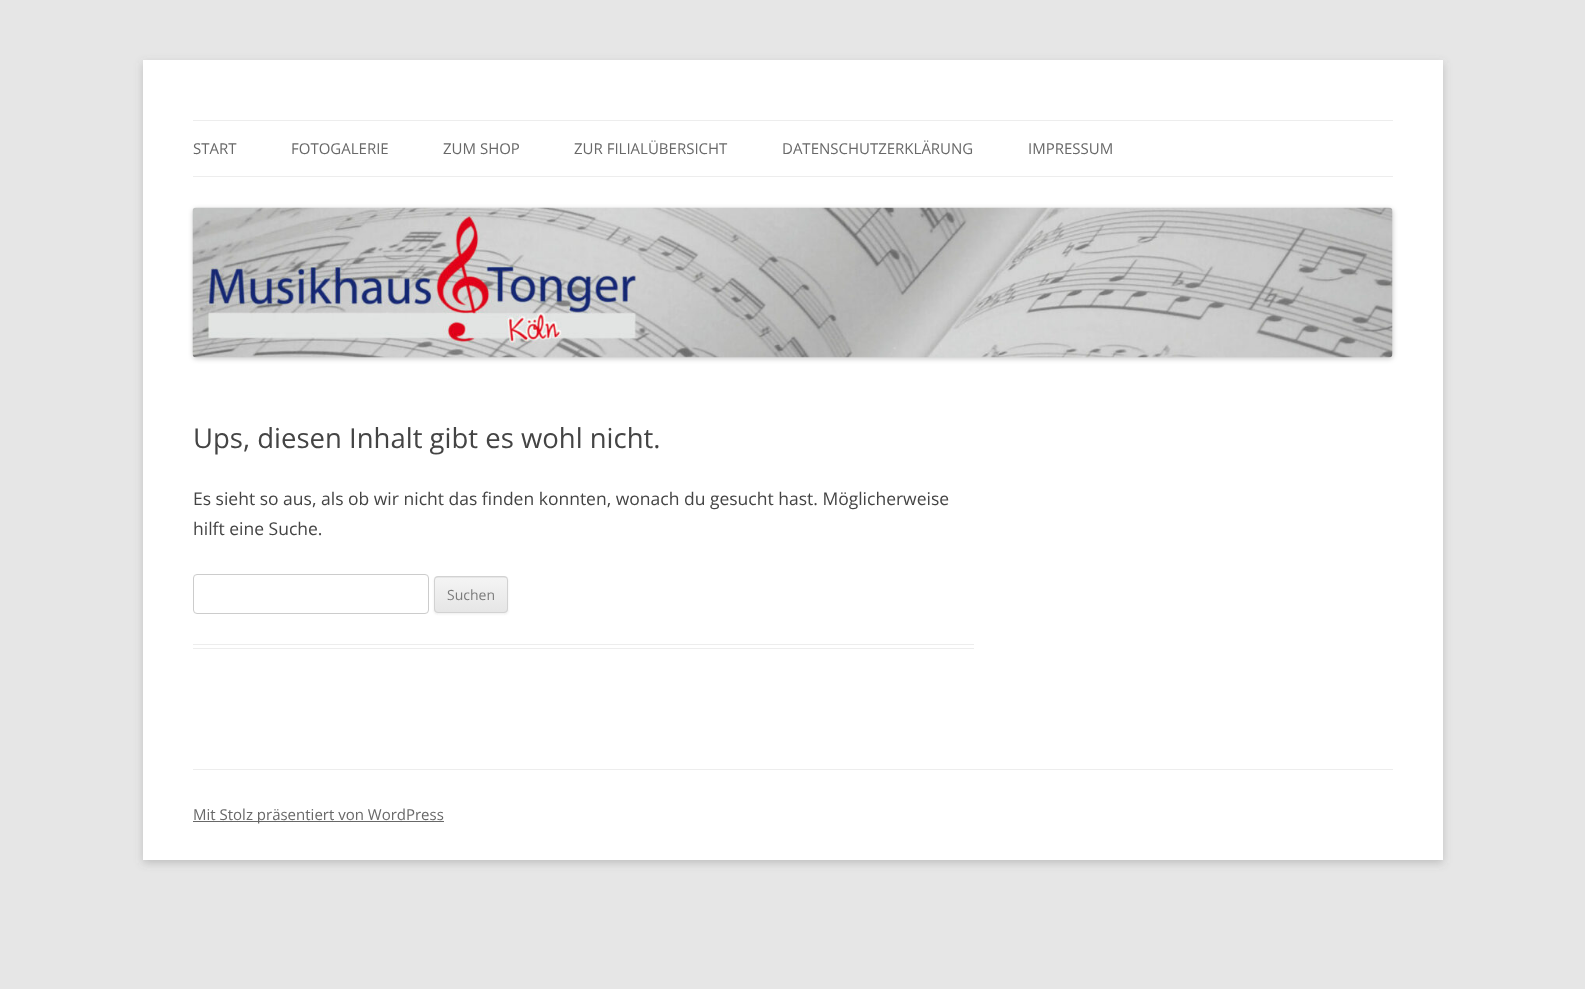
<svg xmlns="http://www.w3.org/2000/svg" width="1585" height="989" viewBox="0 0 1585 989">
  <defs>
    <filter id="blur1" x="-50%" y="-200%" width="200%" height="500%"><feGaussianBlur stdDeviation="4"/></filter>
    <filter id="blur2" x="-50%" y="-200%" width="200%" height="500%"><feGaussianBlur stdDeviation="2.5"/></filter>
    <filter id="blur3" x="-50%" y="-200%" width="200%" height="500%"><feGaussianBlur stdDeviation="1"/></filter>
    <clipPath id="clip1"><rect x="434" y="576" width="74" height="37" rx="4"/></clipPath>
    <linearGradient id="g1" gradientUnits="userSpaceOnUse" x1="471" y1="578" x2="471" y2="611"><stop offset="0" stop-color="#f4f4f4"/><stop offset="1" stop-color="#e6e6e6"/></linearGradient>
  </defs>
  <rect width="100%" height="100%" fill="#e6e6e6"/>
  <rect x="143" y="63" width="1300" height="800" fill="#646464" fill-opacity="0.3" filter="url(#blur1)"/>
  <rect x="143" y="60" width="1300" height="800" fill="#ffffff"/>
  <rect x="193" y="120" width="1200" height="1" fill="#ededed"/>
  <rect x="193" y="176" width="1200" height="1" fill="#ededed"/>
  <text x="193" y="154" font-family="Open Sans" font-size="15" fill="#686868">START</text>
  <text x="291" y="154" font-family="Open Sans" font-size="15" fill="#686868">FOTOGALERIE</text>
  <text x="443" y="154" font-family="Open Sans" font-size="15" fill="#686868">ZUM SHOP</text>
  <text x="574" y="154" font-family="Open Sans" font-size="15" fill="#686868">ZUR FILIALÜBERSICHT</text>
  <text x="782" y="154" font-family="Open Sans" font-size="15" fill="#686868">DATENSCHUTZERKLÄRUNG</text>
  <text x="1028" y="154" font-family="Open Sans" font-size="15" fill="#686868">IMPRESSUM</text>
  <rect x="193" y="209" width="1200" height="150" rx="4" fill="#000000" fill-opacity="0.2" filter="url(#blur2)"/>
  <image x="192" y="207" width="1201" height="151" href="img1.png"/>
  <rect x="193" y="644" width="781" height="1" fill="#ededed"/>
  <rect x="193" y="648" width="781" height="1" fill="#ededed"/>
  <text x="193" y="448" font-family="Open Sans" font-size="27.5" fill="#444444">Ups, diesen Inhalt gibt es wohl nicht.</text>
  <text x="193" y="505" font-family="Open Sans" font-size="17.5" fill="#444444">Es sieht so aus, als ob wir nicht das finden konnten, wonach du gesucht hast. Möglicherweise</text>
  <text x="193" y="535" font-family="Open Sans" font-size="17.5" fill="#444444">hilft eine Suche.</text>
  <rect x="193.5" y="574.5" width="235" height="39" rx="3.5" fill="none" stroke="#cccccc"/>
  <rect x="434" y="578" width="74" height="36" rx="4" fill="#404040" fill-opacity="0.1" filter="url(#blur3)"/>
  <rect x="434" y="576" width="74" height="37" rx="4" fill="#e6e6e6"/>
  <g clip-path="url(#clip1)">
    <rect x="434" y="578" width="74" height="33" fill="url(#g1)"/>
  </g>
  <rect x="434.5" y="576.5" width="73" height="36" rx="3.5" fill="none" stroke="#d2d2d2"/>
  <text x="447" y="600" font-family="Open Sans" font-size="14" fill="#7c7c7c">Suchen</text>
  <rect x="193" y="769" width="1200" height="1" fill="#ededed"/>
  <rect x="193" y="821" width="251" height="1" fill="#686868"/>
  <text x="193" y="820" font-family="Open Sans" font-size="15" fill="#686868">Mit Stolz präsentiert von WordPress</text>
</svg>
